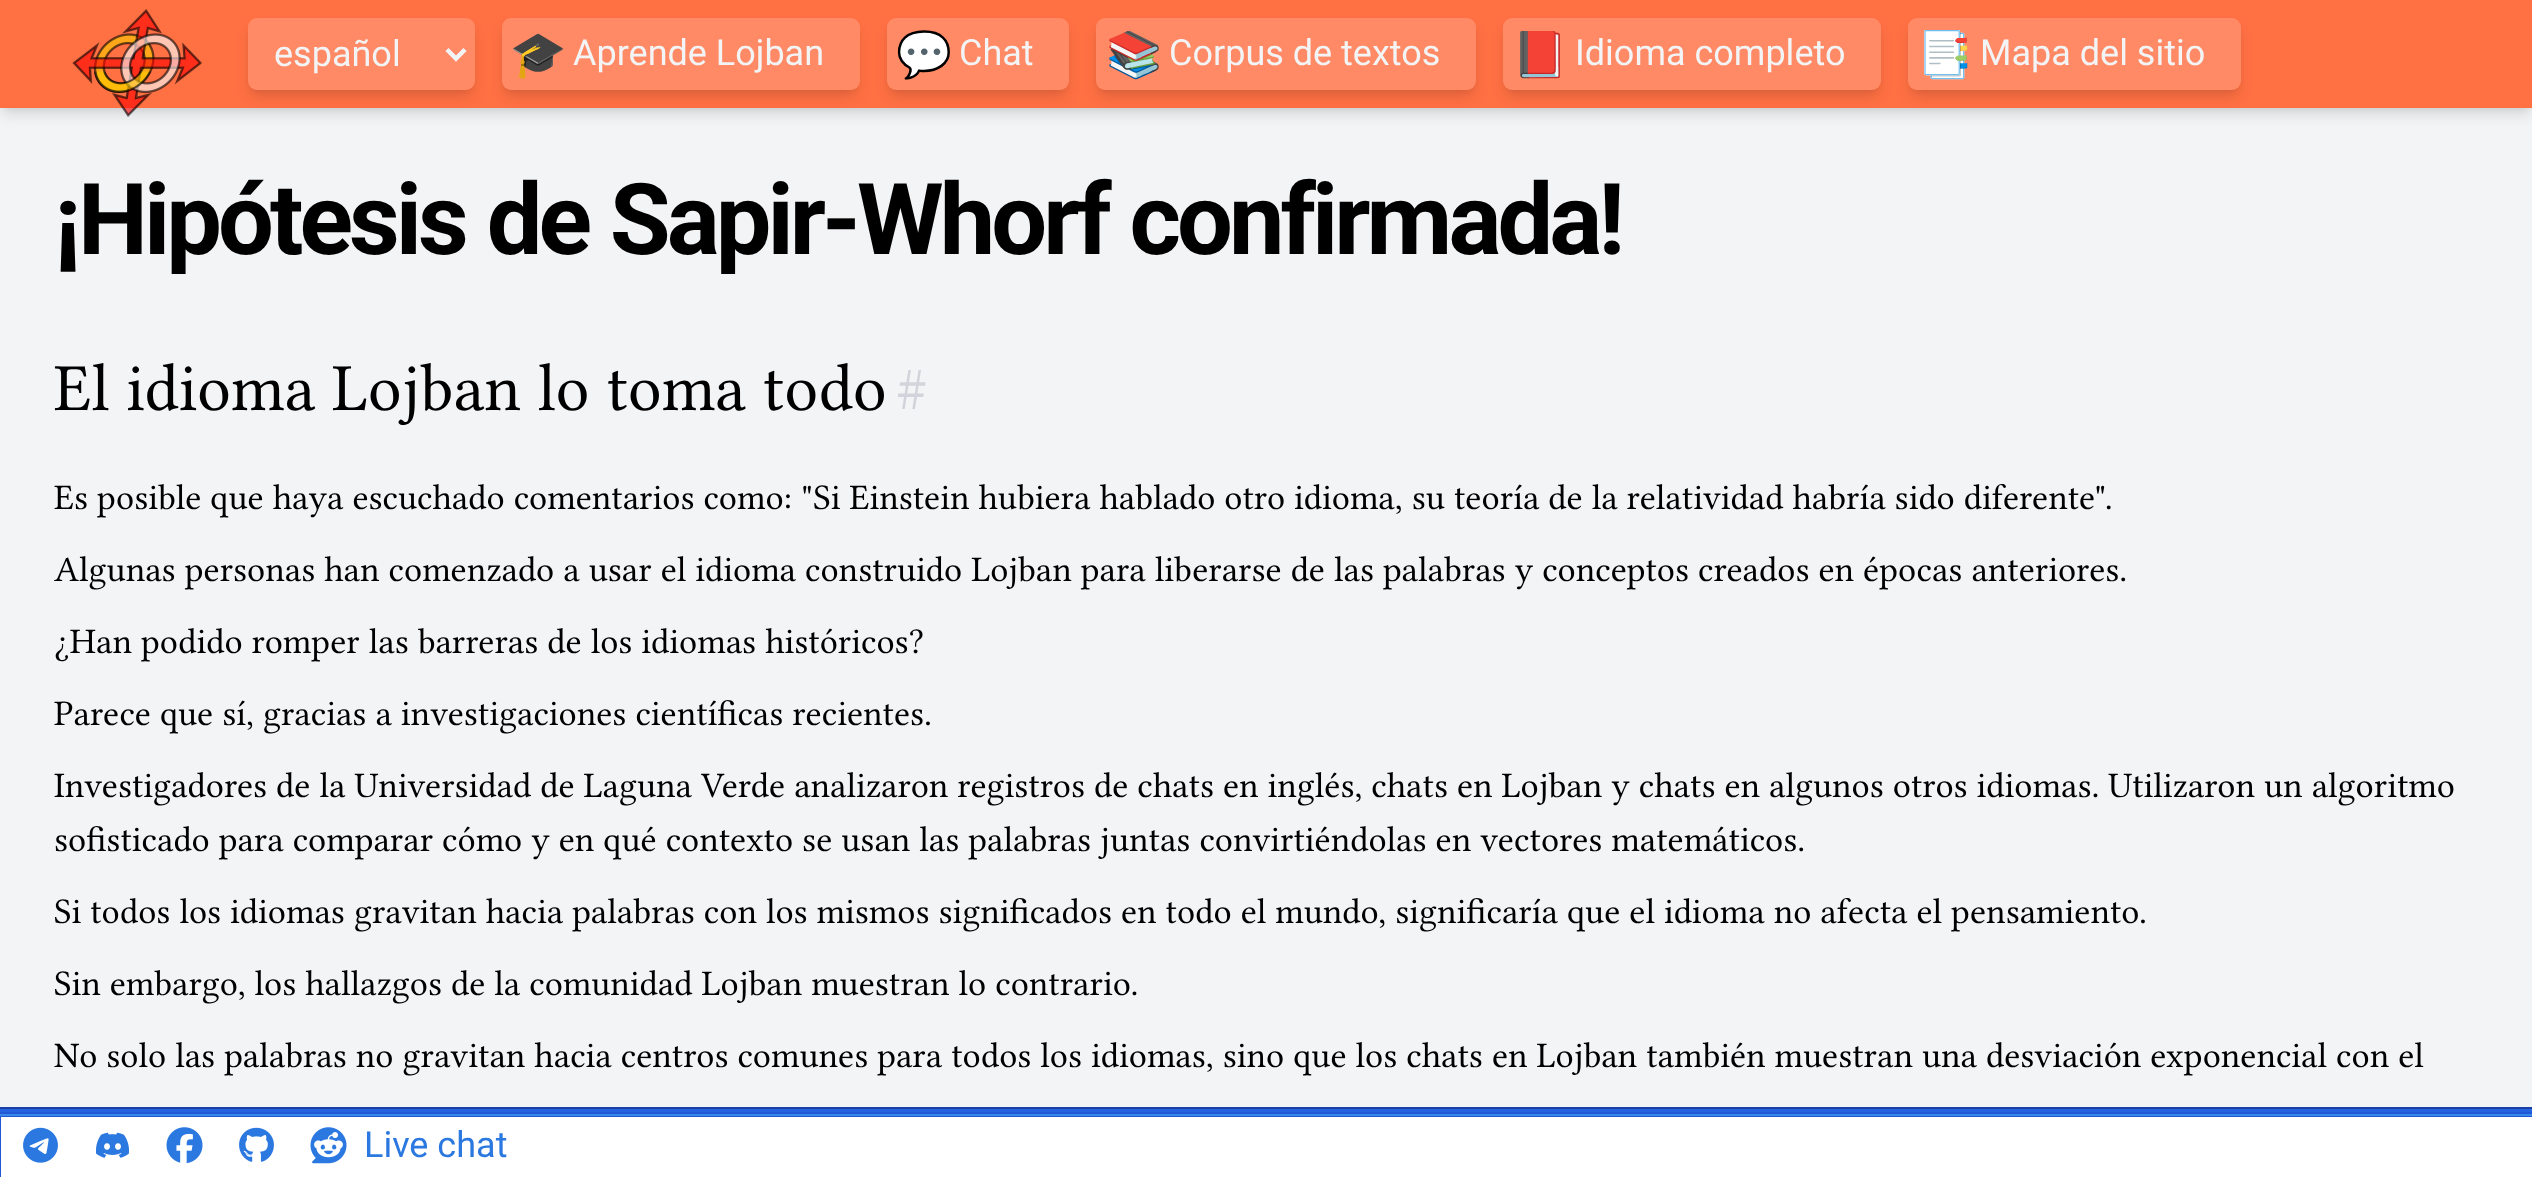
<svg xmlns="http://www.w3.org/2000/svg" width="2532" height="1177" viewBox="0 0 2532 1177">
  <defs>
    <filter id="blur1" x="-50%" y="-200%" width="200%" height="500%"><feGaussianBlur stdDeviation="4.5"/></filter>
    <filter id="blur2" x="-50%" y="-200%" width="200%" height="500%"><feGaussianBlur stdDeviation="7"/></filter>
  </defs>
  <rect width="100%" height="100%" fill="#f3f4f6"/>
  <rect x="5" y="9" width="2524" height="99" fill="#000000" fill-opacity="0.1" filter="url(#blur1)"/>
  <rect x="2" y="11" width="2529" height="104" fill="#000000" fill-opacity="0.1" filter="url(#blur2)"/>
  <rect x="0" y="0" width="2532" height="108" fill="#ff7043"/>
  <image x="72" y="9" width="130" height="108" href="img1.png"/>
  <rect x="252" y="27" width="218" height="63" rx="5" fill="#000000" fill-opacity="0.1" filter="url(#blur1)"/>
  <rect x="250" y="29" width="223" height="68" rx="7" fill="#000000" fill-opacity="0.1" filter="url(#blur2)"/>
  <rect x="248" y="18" width="227" height="72" rx="9" fill="#ff8a65"/>
  <path d="M447 49.5L456 58.5L465 49.5" fill="none" stroke="#f3f4f6" stroke-width="4.5"/>
  <text x="274" y="66" font-family="Roboto" font-size="36" fill="#f3f4f6">español</text>
  <rect x="506" y="27" width="349" height="63" rx="5" fill="#000000" fill-opacity="0.1" filter="url(#blur1)"/>
  <rect x="504" y="29" width="353" height="68" rx="7" fill="#000000" fill-opacity="0.1" filter="url(#blur2)"/>
  <rect x="502" y="18" width="358" height="72" rx="9" fill="#ff8a65"/>
  <text x="510" y="70" font-family="Noto Color Emoji" font-size="45" fill="#f5dfd9">🎓</text>
  <text x="573" y="65" font-family="Roboto" font-size="36" fill="#f3f4f6">Aprende Lojban</text>
  <rect x="891" y="27" width="173" height="63" rx="5" fill="#000000" fill-opacity="0.1" filter="url(#blur1)"/>
  <rect x="889" y="29" width="178" height="68" rx="7" fill="#000000" fill-opacity="0.1" filter="url(#blur2)"/>
  <rect x="887" y="18" width="182" height="72" rx="9" fill="#ff8a65"/>
  <text x="896" y="70" font-family="Noto Color Emoji" font-size="45" fill="#f5dfd9">💬</text>
  <text x="959" y="65" font-family="Roboto" font-size="36" fill="#f3f4f6">Chat</text>
  <rect x="1100" y="27" width="372" height="63" rx="5" fill="#000000" fill-opacity="0.1" filter="url(#blur1)"/>
  <rect x="1098" y="29" width="376" height="68" rx="7" fill="#000000" fill-opacity="0.1" filter="url(#blur2)"/>
  <rect x="1096" y="18" width="380" height="72" rx="9" fill="#ff8a65"/>
  <text x="1106" y="70" font-family="Noto Color Emoji" font-size="45" fill="#f5dfd9">📚</text>
  <text x="1169" y="65" font-family="Roboto" font-size="36" fill="#f3f4f6">Corpus de textos</text>
  <rect x="1508" y="27" width="369" height="63" rx="5" fill="#000000" fill-opacity="0.1" filter="url(#blur1)"/>
  <rect x="1505" y="29" width="374" height="68" rx="7" fill="#000000" fill-opacity="0.1" filter="url(#blur2)"/>
  <rect x="1503" y="18" width="378" height="72" rx="9" fill="#ff8a65"/>
  <text x="1512" y="70" font-family="Noto Color Emoji" font-size="45" fill="#f5dfd9">📕</text>
  <text x="1575" y="65" font-family="Roboto" font-size="36" fill="#f3f4f6">Idioma completo</text>
  <rect x="1913" y="27" width="324" height="63" rx="5" fill="#000000" fill-opacity="0.1" filter="url(#blur1)"/>
  <rect x="1910" y="29" width="329" height="68" rx="7" fill="#000000" fill-opacity="0.1" filter="url(#blur2)"/>
  <rect x="1908" y="18" width="333" height="72" rx="9" fill="#ff8a65"/>
  <text x="1917" y="70" font-family="Noto Color Emoji" font-size="45" fill="#f5dfd9">📑</text>
  <text x="1980" y="65" font-family="Roboto" font-size="36" fill="#f3f4f6">Mapa del sitio</text>
  <text x="54" y="254" word-spacing="1" font-family="Roboto" font-size="99" font-weight="bold" letter-spacing="-3.95" fill="#000000">¡Hipótesis de Sapir-Whorf confirmada!</text>
  <text x="54" y="410" font-family="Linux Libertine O" font-size="67.5" fill="#000000">El idioma Lojban lo toma todo</text>
  <text x="896" y="410" font-family="Linux Libertine O" font-size="67.5" fill="#d1d5db">#</text>
  <text x="54" y="509" font-family="Linux Libertine O" font-size="36" fill="#000000">Es posible que haya escuchado comentarios como: "Si Einstein hubiera hablado otro idioma, su teoría de la relatividad habría sido diferente".</text>
  <text x="54" y="581" font-family="Linux Libertine O" font-size="36" fill="#000000">Algunas personas han comenzado a usar el idioma construido Lojban para liberarse de las palabras y conceptos creados en épocas anteriores.</text>
  <text x="54" y="653" font-family="Linux Libertine O" font-size="36" fill="#000000">¿Han podido romper las barreras de los idiomas históricos?</text>
  <text x="54" y="725" font-family="Linux Libertine O" font-size="36" fill="#000000">Parece que sí, gracias a investigaciones científicas recientes.</text>
  <text x="54" y="797" font-family="Linux Libertine O" font-size="36" fill="#000000">Investigadores de la Universidad de Laguna Verde analizaron registros de chats en inglés, chats en Lojban y chats en algunos otros idiomas. Utilizaron un algoritmo</text>
  <text x="54" y="851" font-family="Linux Libertine O" font-size="36" fill="#000000">sofisticado para comparar cómo y en qué contexto se usan las palabras juntas convirtiéndolas en vectores matemáticos.</text>
  <text x="54" y="923" font-family="Linux Libertine O" font-size="36" fill="#000000">Si todos los idiomas gravitan hacia palabras con los mismos significados en todo el mundo, significaría que el idioma no afecta el pensamiento.</text>
  <text x="54" y="995" font-family="Linux Libertine O" font-size="36" fill="#000000">Sin embargo, los hallazgos de la comunidad Lojban muestran lo contrario.</text>
  <text x="54" y="1067" font-family="Linux Libertine O" font-size="36" fill="#000000">No solo las palabras no gravitan hacia centros comunes para todos los idiomas, sino que los chats en Lojban también muestran una desviación exponencial con el</text>
  <rect x="1" y="1117" width="2531" height="60" fill="#ffffff"/>
  <rect x="-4.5" y="1111.5" width="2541" height="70" fill="none" stroke="#1941a5" stroke-width="9"/>
  <rect x="-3.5" y="1112.5" width="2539" height="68" fill="none" stroke="#2663e0" stroke-width="7"/>
  <rect x="-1.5" y="1114.5" width="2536" height="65" fill="none" stroke="#2257d5" stroke-width="5"/>
  <rect x="-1" y="1115" width="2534" height="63" fill="none" stroke="#3888e9" stroke-width="2"/>
  <image x="23" y="1127" width="35" height="36" href="img2.png"/>
  <image x="95" y="1132" width="34" height="26" href="img3.png"/>
  <image x="166" y="1127" width="37" height="37" href="img4.png"/>
  <image x="239" y="1127" width="35" height="35" href="img5.png"/>
  <image x="310" y="1127" width="37" height="37" href="img6.png"/>
  <text x="364" y="1157" font-family="Roboto" font-size="36" fill="#2b79e0">Live chat</text>
</svg>
